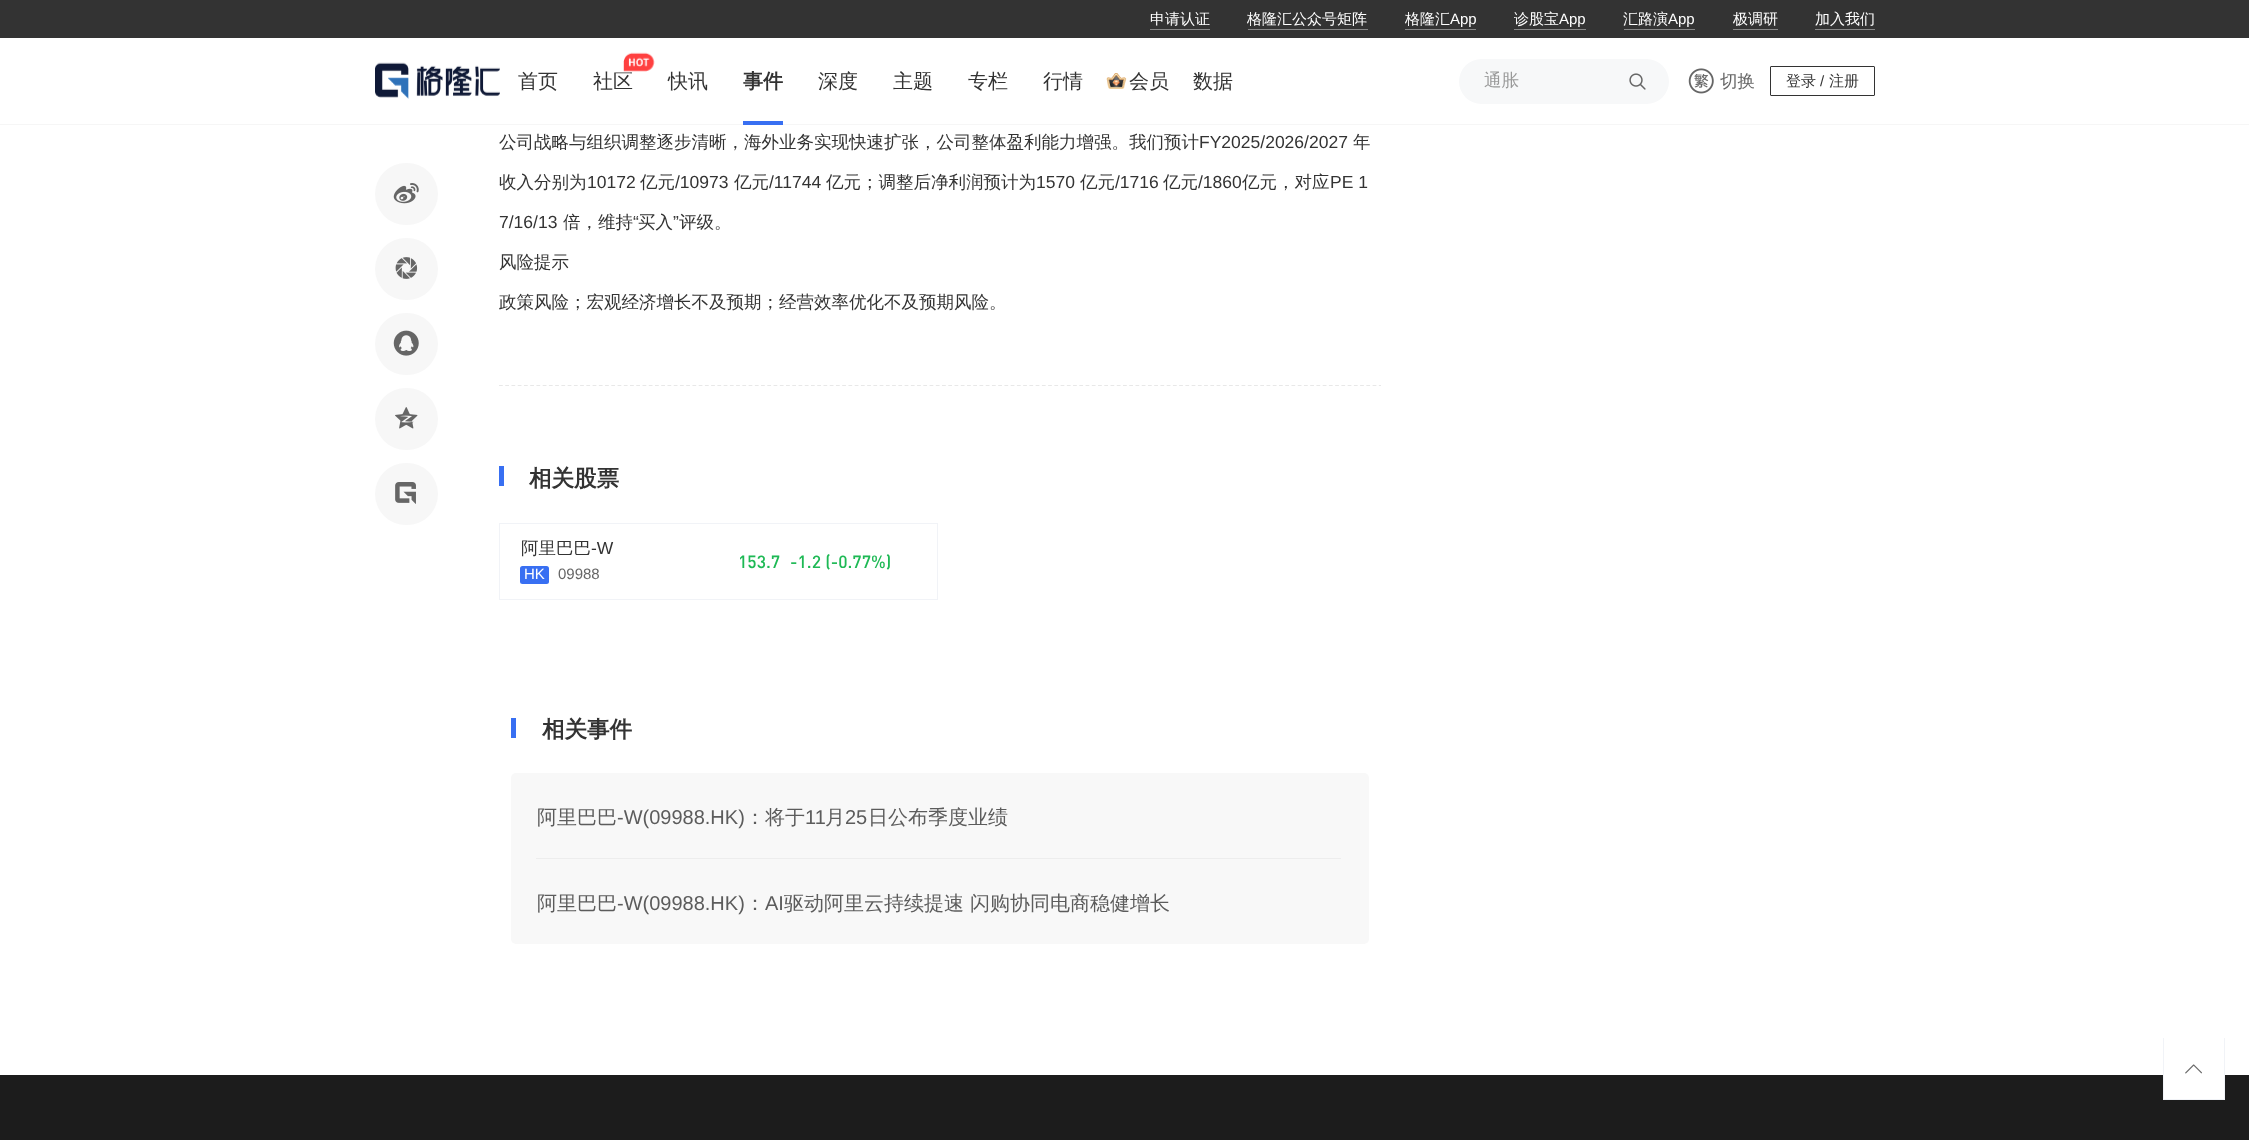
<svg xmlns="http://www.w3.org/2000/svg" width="2249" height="1140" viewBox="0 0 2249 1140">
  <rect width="100%" height="100%" fill="#ffffff"/>
  <rect x="0" y="0" width="2249" height="38" fill="#333333"/>
  <text x="1150" y="24" font-family="WenQuanYi Zen Hei" font-size="15" font-weight="500" fill="#ffffff">申请认证</text>
  <rect x="1150" y="29" width="60" height="1" fill="#878787"/>
  <text x="1247" y="24" font-family="WenQuanYi Zen Hei" font-size="15" font-weight="500" fill="#ffffff">格隆汇公众号矩阵</text>
  <rect x="1248" y="29" width="120" height="1" fill="#878787"/>
  <text x="1405" y="24" font-family="WenQuanYi Zen Hei" font-size="15" font-weight="500" fill="#ffffff">格隆汇</text>
  <text x="1450" y="24" font-family="Liberation Sans" font-size="15" fill="#ffffff">App</text>
  <rect x="1405" y="29" width="71" height="1" fill="#878787"/>
  <text x="1514" y="24" font-family="WenQuanYi Zen Hei" font-size="15" font-weight="500" fill="#ffffff">诊股宝</text>
  <text x="1559" y="24" font-family="Liberation Sans" font-size="15" fill="#ffffff">App</text>
  <rect x="1514" y="29" width="72" height="1" fill="#878787"/>
  <text x="1623" y="24" font-family="WenQuanYi Zen Hei" font-size="15" font-weight="500" fill="#ffffff">汇路演</text>
  <text x="1668" y="24" font-family="Liberation Sans" font-size="15" fill="#ffffff">App</text>
  <rect x="1624" y="29" width="71" height="1" fill="#878787"/>
  <text x="1733" y="24" font-family="WenQuanYi Zen Hei" font-size="15" font-weight="500" fill="#ffffff">极调研</text>
  <rect x="1733" y="29" width="45" height="1" fill="#878787"/>
  <text x="1815" y="24" font-family="WenQuanYi Zen Hei" font-size="15" font-weight="500" fill="#ffffff">加入我们</text>
  <rect x="1815" y="29" width="60" height="1" fill="#878787"/>
  <rect x="0" y="124" width="2249" height="1" fill="#f6f6f6"/>
  <image x="375" y="62" width="125" height="37" href="img1.png"/>
  <text x="518" y="88" font-family="WenQuanYi Zen Hei" font-size="20" font-weight="500" fill="#333333">首页</text>
  <text x="593" y="88" font-family="WenQuanYi Zen Hei" font-size="20" font-weight="500" fill="#333333">社区</text>
  <image x="623" y="52" width="32" height="20" href="img2.png"/>
  <text x="668" y="88" font-family="WenQuanYi Zen Hei" font-size="20" font-weight="500" fill="#333333">快讯</text>
  <text x="743" y="88" font-family="WenQuanYi Zen Hei" font-size="20" font-weight="bold" fill="#333333">事件</text>
  <rect x="743" y="121" width="40" height="4" fill="#386ff2"/>
  <text x="818" y="88" font-family="WenQuanYi Zen Hei" font-size="20" font-weight="500" fill="#333333">深度</text>
  <text x="893" y="88" font-family="WenQuanYi Zen Hei" font-size="20" font-weight="500" fill="#333333">主题</text>
  <text x="968" y="88" font-family="WenQuanYi Zen Hei" font-size="20" font-weight="500" fill="#333333">专栏</text>
  <text x="1043" y="88" font-family="WenQuanYi Zen Hei" font-size="20" font-weight="500" fill="#333333">行情</text>
  <image x="1106" y="73" width="21" height="16" href="img3.png"/>
  <text x="1129" y="88" font-family="WenQuanYi Zen Hei" font-size="20" font-weight="500" fill="#333333">会员</text>
  <text x="1193" y="88" font-family="WenQuanYi Zen Hei" font-size="20" font-weight="500" fill="#333333">数据</text>
  <rect x="1459" y="59" width="210" height="45" rx="22.5" fill="#f7f8f9"/>
  <text x="1484" y="86" font-family="WenQuanYi Zen Hei" font-size="17.5" font-weight="500" fill="#999999">通胀</text>
  <image x="1629" y="73" width="17" height="17" href="img4.png"/>
  <image x="1688" y="68" width="26" height="26" href="img5.png"/>
  <text x="1720" y="87" font-family="WenQuanYi Zen Hei" font-size="17.5" font-weight="500" fill="#666666">切换</text>
  <rect x="1770.5" y="66.5" width="104" height="29" rx="0.5" fill="none" stroke="#333333"/>
  <text x="1786" y="86" font-family="WenQuanYi Zen Hei" font-size="15" font-weight="500" fill="#333333">登录</text>
  <text x="1820" y="86" font-family="Liberation Sans" font-size="15" fill="#333333">/</text>
  <text x="1829" y="86" font-family="WenQuanYi Zen Hei" font-size="15" font-weight="500" fill="#333333">注册</text>
  <rect x="375" y="163" width="63" height="62" rx="31" fill="#f7f7f7"/>
  <image x="393" y="183" width="26" height="21" href="img6.png"/>
  <rect x="375" y="238" width="63" height="62" rx="31" fill="#f7f7f7"/>
  <image x="395" y="257" width="23" height="22" href="img7.png"/>
  <rect x="375" y="313" width="63" height="62" rx="31" fill="#f7f7f7"/>
  <image x="393" y="330" width="26" height="26" href="img8.png"/>
  <rect x="375" y="388" width="63" height="62" rx="31" fill="#f7f7f7"/>
  <image x="395" y="407" width="23" height="22" href="img9.png"/>
  <rect x="375" y="463" width="63" height="62" rx="31" fill="#f7f7f7"/>
  <image x="395" y="482" width="21" height="22" href="img10.png"/>
  <path d="M499 385.5H1381" fill="none" stroke="#e8e8e8" stroke-width="1.2" stroke-dasharray="3.75 2.49"/>
  <text x="499" y="148" font-family="WenQuanYi Zen Hei" font-size="17.5" font-weight="500" fill="#333333">公司战略与组织调整逐步清晰，海外业务实现快速扩张，公司整体盈利能力增强。我们预计</text>
  <text x="1199" y="148" font-family="Liberation Sans" font-size="17.5" fill="#333333">FY2025/2026/2027</text>
  <text x="1353" y="148" font-family="WenQuanYi Zen Hei" font-size="17.5" font-weight="500" fill="#333333">年</text>
  <text x="499" y="188" font-family="WenQuanYi Zen Hei" font-size="17.5" font-weight="500" fill="#333333">收入分别为</text>
  <text x="587" y="188" font-family="Liberation Sans" font-size="17.5" fill="#333333">10172</text>
  <text x="640" y="188" font-family="WenQuanYi Zen Hei" font-size="17.5" font-weight="500" fill="#333333">亿元</text>
  <text x="675" y="188" font-family="Liberation Sans" font-size="17.5" fill="#333333">/10973</text>
  <text x="734" y="188" font-family="WenQuanYi Zen Hei" font-size="17.5" font-weight="500" fill="#333333">亿元</text>
  <text x="769" y="188" font-family="Liberation Sans" font-size="17.5" fill="#333333">/11744</text>
  <text x="826" y="188" font-family="WenQuanYi Zen Hei" font-size="17.5" font-weight="500" fill="#333333">亿元；调整后净利润预计为</text>
  <text x="1036" y="188" font-family="Liberation Sans" font-size="17.5" fill="#333333">1570</text>
  <text x="1080" y="188" font-family="WenQuanYi Zen Hei" font-size="17.5" font-weight="500" fill="#333333">亿元</text>
  <text x="1115" y="188" font-family="Liberation Sans" font-size="17.5" fill="#333333">/1716</text>
  <text x="1163" y="188" font-family="WenQuanYi Zen Hei" font-size="17.5" font-weight="500" fill="#333333">亿元</text>
  <text x="1198" y="188" font-family="Liberation Sans" font-size="17.5" fill="#333333">/1860</text>
  <text x="1242" y="188" font-family="WenQuanYi Zen Hei" font-size="17.5" font-weight="500" fill="#333333">亿元，对应</text>
  <text x="1330" y="188" font-family="Liberation Sans" font-size="17.5" fill="#333333">PE 1</text>
  <text x="499" y="228" font-family="Liberation Sans" font-size="17.5" fill="#333333">7/16/13</text>
  <text x="563" y="228" font-family="WenQuanYi Zen Hei" font-size="17.5" font-weight="500" fill="#333333">倍，维持</text>
  <text x="633" y="228" font-family="Liberation Sans" font-size="17.5" fill="#333333">“</text>
  <text x="638" y="228" font-family="WenQuanYi Zen Hei" font-size="17.5" font-weight="500" fill="#333333">买入</text>
  <text x="673" y="228" font-family="Liberation Sans" font-size="17.5" fill="#333333">”</text>
  <text x="679" y="228" font-family="WenQuanYi Zen Hei" font-size="17.5" font-weight="500" fill="#333333">评级。</text>
  <text x="499" y="268" font-family="WenQuanYi Zen Hei" font-size="17.5" font-weight="500" fill="#333333">风险提示</text>
  <text x="499" y="308" font-family="WenQuanYi Zen Hei" font-size="17.5" font-weight="500" fill="#333333">政策风险；宏观经济增长不及预期；经营效率优化不及预期风险。</text>
  <rect x="499" y="466" width="5" height="20" fill="#386ff2"/>
  <text x="529" y="486" font-family="WenQuanYi Zen Hei" font-size="22.5" font-weight="bold" fill="#333333">相关股票</text>
  <rect x="499.5" y="523.5" width="438" height="76" fill="none" stroke="#f1f3f7"/>
  <text x="521" y="554" font-family="WenQuanYi Zen Hei" font-size="17.5" font-weight="500" fill="#333333">阿里巴巴</text>
  <text x="591" y="554" font-family="Liberation Sans" font-size="17.5" fill="#333333">-W</text>
  <rect x="520" y="566" width="29" height="18" rx="2.5" fill="#386ff2"/>
  <text x="524" y="579" font-family="Liberation Sans" font-size="15" fill="#ffffff">HK</text>
  <text x="558" y="579" font-family="Liberation Sans" font-size="15" fill="#666666">09988</text>
  <text x="738" y="568" font-family="DIN" font-size="17.5" font-weight="500" fill="#1eb955">153.7</text>
  <text x="790" y="568" font-family="DIN" font-size="17.5" font-weight="500" fill="#1eb955">-1.2 (-0.77%)</text>
  <rect x="511" y="718" width="5" height="20" fill="#386ff2"/>
  <text x="542" y="737" font-family="WenQuanYi Zen Hei" font-size="22.5" font-weight="bold" fill="#333333">相关事件</text>
  <rect x="511" y="773" width="858" height="171" rx="5" fill="#f8f8f8"/>
  <rect x="536" y="858" width="805" height="1" fill="#ededed"/>
  <text x="537" y="824" font-family="WenQuanYi Zen Hei" font-size="20" font-weight="500" fill="#5c5c5c">阿里巴巴</text>
  <text x="617" y="824" font-family="Liberation Sans" font-size="20" fill="#5c5c5c">-W(09988.HK)</text>
  <text x="745" y="824" font-family="WenQuanYi Zen Hei" font-size="20" font-weight="500" fill="#5c5c5c">：将于</text>
  <text x="805" y="824" font-family="Liberation Sans" font-size="20" fill="#5c5c5c">11</text>
  <text x="825" y="824" font-family="WenQuanYi Zen Hei" font-size="20" font-weight="500" fill="#5c5c5c">月</text>
  <text x="845" y="824" font-family="Liberation Sans" font-size="20" fill="#5c5c5c">25</text>
  <text x="868" y="824" font-family="WenQuanYi Zen Hei" font-size="20" font-weight="500" fill="#5c5c5c">日公布季度业绩</text>
  <text x="537" y="910" font-family="WenQuanYi Zen Hei" font-size="20" font-weight="500" fill="#5c5c5c">阿里巴巴</text>
  <text x="617" y="910" font-family="Liberation Sans" font-size="20" fill="#5c5c5c">-W(09988.HK)</text>
  <text x="745" y="910" font-family="WenQuanYi Zen Hei" font-size="20" font-weight="500" fill="#5c5c5c">：</text>
  <text x="765" y="910" font-family="Liberation Sans" font-size="20" fill="#5c5c5c">AI</text>
  <text x="784" y="910" font-family="WenQuanYi Zen Hei" font-size="20" font-weight="500" fill="#5c5c5c">驱动阿里云持续提速 闪购协同电商稳健增长</text>
  <rect x="0" y="1075" width="2249" height="65" fill="#1c1c1c"/>
  <rect x="2164" y="1075" width="60" height="24" fill="#ffffff"/>
  <rect x="2224" y="1038" width="1" height="62" fill="#f1f3f7"/>
  <rect x="2163" y="1099" width="62" height="1" fill="#f1f3f7"/>
  <rect x="2163" y="1038" width="1" height="62" fill="#f1f3f7"/>
  <image x="2185" y="1064" width="17" height="10" href="img11.png"/>
</svg>
